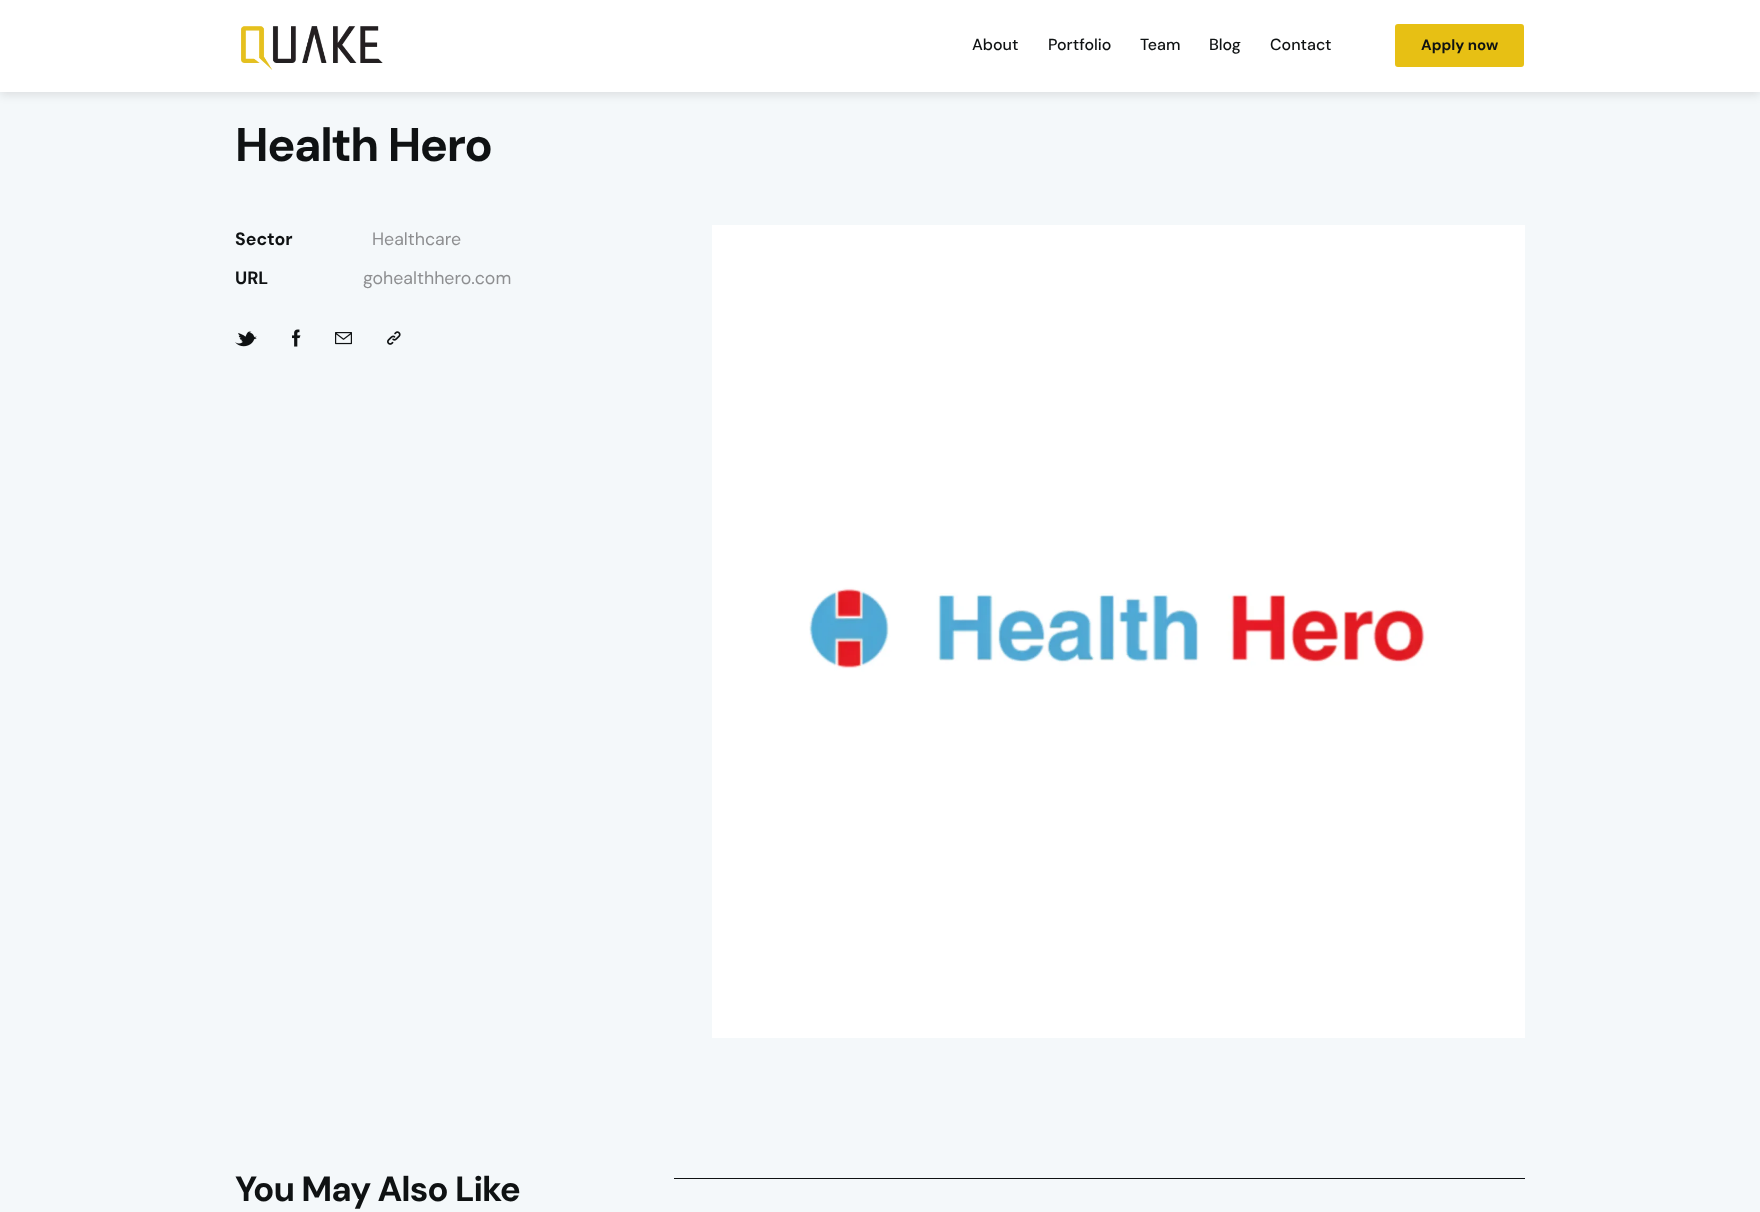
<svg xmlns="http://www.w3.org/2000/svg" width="1760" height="1212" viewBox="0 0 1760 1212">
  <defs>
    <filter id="blur1" x="-50%" y="-200%" width="200%" height="500%"><feGaussianBlur stdDeviation="5"/></filter>
  </defs>
  <rect width="100%" height="100%" fill="#f4f8fa"/>
  <rect x="0" y="3" width="1760" height="92" fill="#000000" fill-opacity="0.1" filter="url(#blur1)"/>
  <rect x="0" y="0" width="1760" height="92" fill="#ffffff"/>
  <image x="241" y="26" width="142" height="44" href="img1.png"/>
  <text x="972" y="50" font-family="DM Sans" font-size="16" font-weight="500" fill="#0f1213">About</text>
  <text x="1048" y="50" font-family="DM Sans" font-size="16" font-weight="500" fill="#0f1213">Portfolio</text>
  <text x="1140" y="50" font-family="DM Sans" font-size="16" font-weight="500" fill="#0f1213">Team</text>
  <text x="1209" y="50" font-family="DM Sans" font-size="16" font-weight="500" fill="#0f1213">Blog</text>
  <text x="1270" y="50" font-family="DM Sans" font-size="16" font-weight="500" fill="#0f1213">Contact</text>
  <rect x="1396" y="25" width="127" height="41" rx="2" fill="#e7c014" stroke="#e7c014" stroke-width="2"/>
  <text x="1421" y="50" font-family="DM Sans" font-size="15" font-weight="bold" fill="#0f1213">Apply now</text>
  <text x="235" y="161" font-family="DM Sans" font-size="47" font-weight="bold" letter-spacing="-1.4" fill="#0f1213">Health Hero</text>
  <text x="235" y="245" font-family="DM Sans" font-size="17.75" font-weight="bold" fill="#0f1213">Sector</text>
  <text x="372" y="245" font-family="DM Sans" font-size="17.75" fill="#8d8e90">Healthcare</text>
  <text x="235" y="284" font-family="DM Sans" font-size="17.75" font-weight="bold" fill="#0f1213">URL</text>
  <text x="363" y="284" font-family="DM Sans" font-size="17.75" fill="#8d8e90">gohealthhero.com</text>
  <image x="235" y="331" width="22" height="16" href="img2.png"/>
  <image x="292" y="329" width="9" height="18" href="img3.png"/>
  <image x="335" y="332" width="17" height="13" href="img4.png"/>
  <image x="387" y="331" width="14" height="14" href="img5.png"/>
  <image x="712" y="225" width="813" height="813" href="img6.png"/>
  <text x="235" y="1201" font-family="DM Sans" font-size="35" font-weight="bold" letter-spacing="-1" fill="#0f1213">You May Also Like</text>
  <rect x="674" y="1178" width="851" height="1" fill="#0f1213"/>
</svg>
